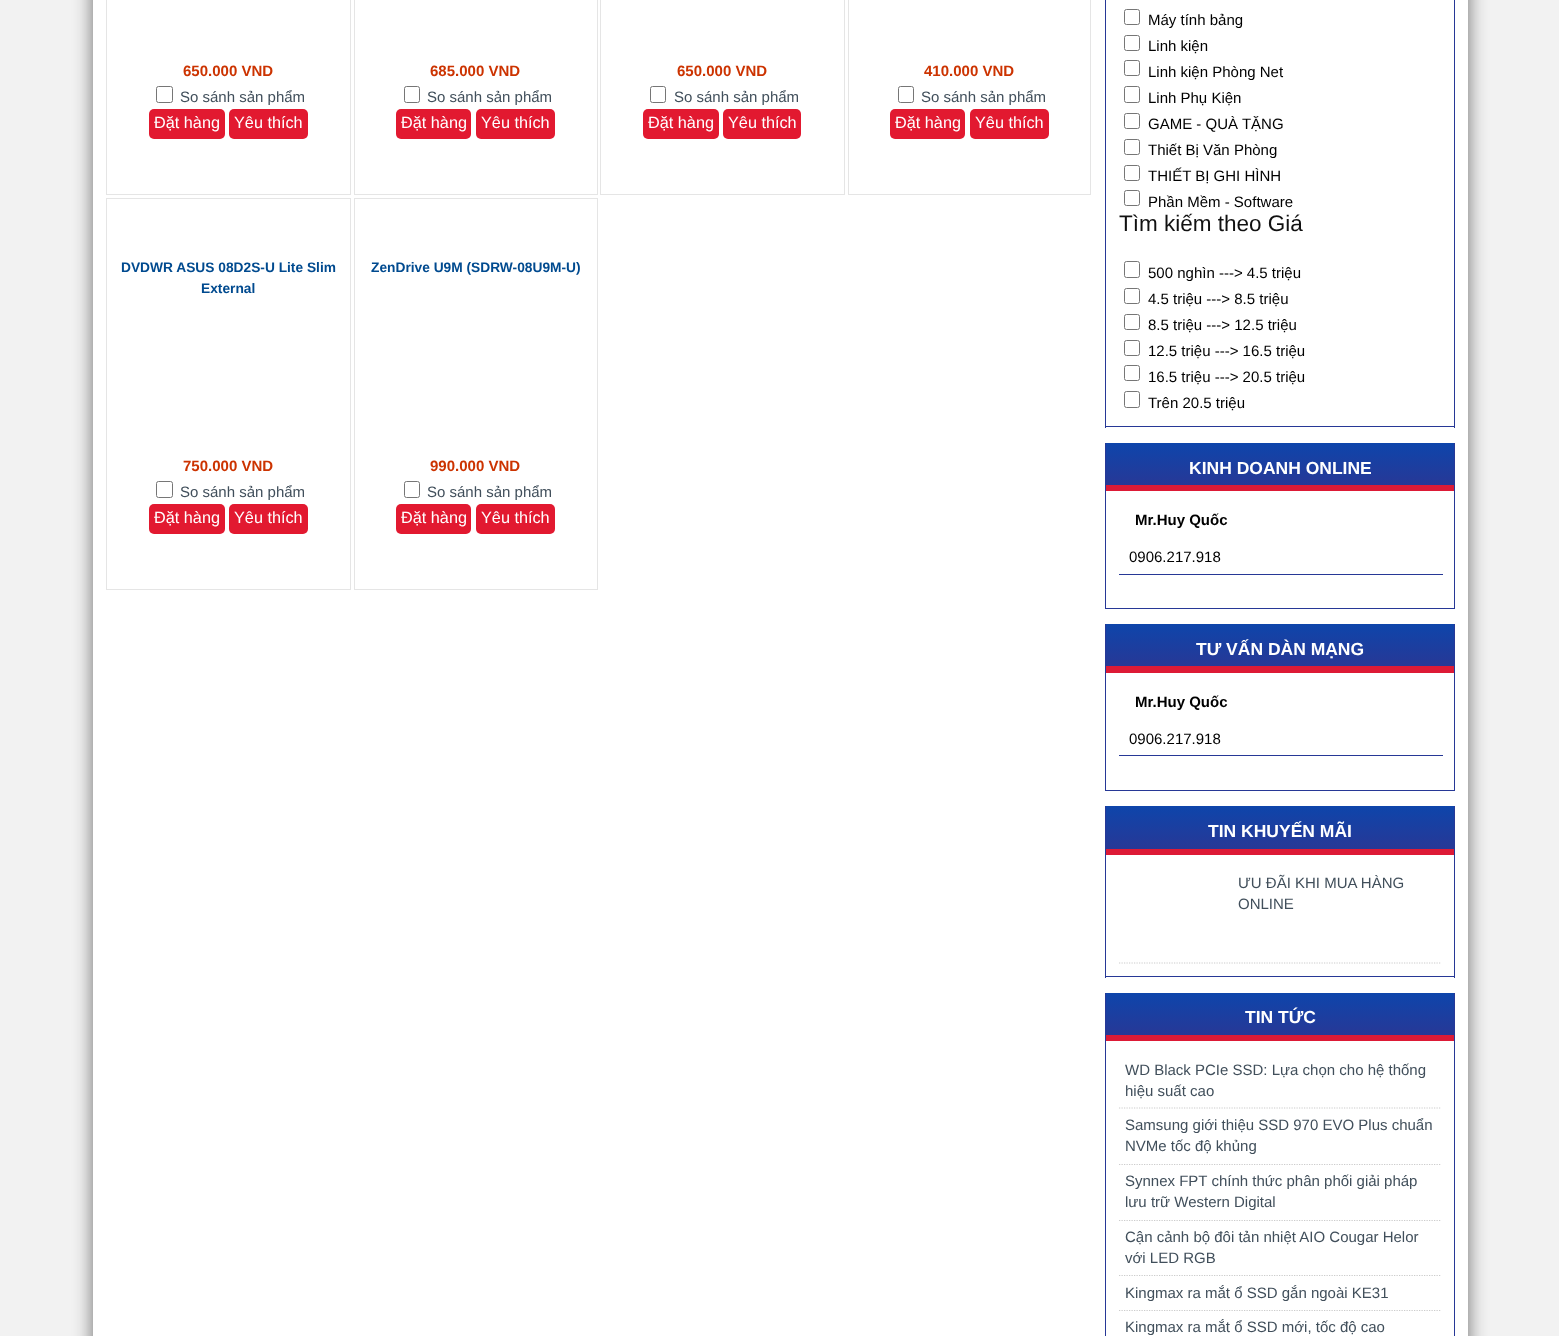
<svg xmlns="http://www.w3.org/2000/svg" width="1559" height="1336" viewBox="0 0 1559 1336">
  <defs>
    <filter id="blur1" x="-50%" y="-200%" width="200%" height="500%"><feGaussianBlur stdDeviation="9.5"/></filter>
    <linearGradient id="g1" gradientUnits="userSpaceOnUse" x1="1280" y1="443" x2="1280" y2="485"><stop offset="0" stop-color="#0e45ab"/><stop offset="1" stop-color="#273896"/></linearGradient>
    <linearGradient id="g2" gradientUnits="userSpaceOnUse" x1="1280" y1="624" x2="1280" y2="666"><stop offset="0" stop-color="#0e45ab"/><stop offset="1" stop-color="#273896"/></linearGradient>
    <linearGradient id="g3" gradientUnits="userSpaceOnUse" x1="1280" y1="806" x2="1280" y2="849"><stop offset="0" stop-color="#0e45ab"/><stop offset="1" stop-color="#273896"/></linearGradient>
    <linearGradient id="g4" gradientUnits="userSpaceOnUse" x1="1280" y1="993" x2="1280" y2="1035"><stop offset="0" stop-color="#0e45ab"/><stop offset="1" stop-color="#273896"/></linearGradient>
  </defs>
  <rect width="100%" height="100%" fill="#f2f2f2"/>
  <rect x="93" y="-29" width="1375" height="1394" fill="#000000" fill-opacity="0.55" filter="url(#blur1)"/>
  <rect x="93" y="0" width="1375" height="1336" fill="#ffffff"/>
  <rect x="106.5" y="-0.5" width="244" height="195" fill="none" stroke="#e5e5e5"/>
  <text x="183" y="76" font-family="Liberation Sans" font-size="15" font-weight="bold" fill="#cc3300">650.000 VND</text>
  <rect x="156.5" y="86.5" width="16" height="16" rx="2" fill="none" stroke="#767676"/>
  <text x="180" y="102" font-family="Liberation Sans" font-size="15" fill="#414f5b">So sánh sản phẩm</text>
  <rect x="149" y="109" width="76" height="30" rx="5" fill="#e21930"/>
  <text x="154" y="128" font-family="Liberation Sans" font-size="16.25" fill="#ffffff">Đặt hàng</text>
  <rect x="229" y="109" width="79" height="30" rx="5" fill="#e21930"/>
  <text x="234" y="128" font-family="Liberation Sans" font-size="16.25" fill="#ffffff">Yêu thích</text>
  <rect x="354.5" y="-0.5" width="243" height="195" fill="none" stroke="#e5e5e5"/>
  <text x="430" y="76" font-family="Liberation Sans" font-size="15" font-weight="bold" fill="#cc3300">685.000 VND</text>
  <rect x="404.5" y="86.5" width="15" height="16" rx="2" fill="none" stroke="#767676"/>
  <text x="427" y="102" font-family="Liberation Sans" font-size="15" fill="#414f5b">So sánh sản phẩm</text>
  <rect x="396" y="109" width="75" height="30" rx="5" fill="#e21930"/>
  <text x="401" y="128" font-family="Liberation Sans" font-size="16.25" fill="#ffffff">Đặt hàng</text>
  <rect x="476" y="109" width="79" height="30" rx="5" fill="#e21930"/>
  <text x="481" y="128" font-family="Liberation Sans" font-size="16.25" fill="#ffffff">Yêu thích</text>
  <rect x="600.5" y="-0.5" width="244" height="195" fill="none" stroke="#e5e5e5"/>
  <text x="677" y="76" font-family="Liberation Sans" font-size="15" font-weight="bold" fill="#cc3300">650.000 VND</text>
  <rect x="650.5" y="86.5" width="15" height="16" rx="2" fill="none" stroke="#767676"/>
  <text x="674" y="102" font-family="Liberation Sans" font-size="15" fill="#414f5b">So sánh sản phẩm</text>
  <rect x="643" y="109" width="76" height="30" rx="5" fill="#e21930"/>
  <text x="648" y="128" font-family="Liberation Sans" font-size="16.25" fill="#ffffff">Đặt hàng</text>
  <rect x="723" y="109" width="78" height="30" rx="5" fill="#e21930"/>
  <text x="728" y="128" font-family="Liberation Sans" font-size="16.25" fill="#ffffff">Yêu thích</text>
  <rect x="848.5" y="-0.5" width="242" height="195" fill="none" stroke="#e5e5e5"/>
  <text x="924" y="76" font-family="Liberation Sans" font-size="15" font-weight="bold" fill="#cc3300">410.000 VND</text>
  <rect x="898.5" y="86.5" width="15" height="16" rx="2" fill="none" stroke="#767676"/>
  <text x="921" y="102" font-family="Liberation Sans" font-size="15" fill="#414f5b">So sánh sản phẩm</text>
  <rect x="890" y="109" width="75" height="30" rx="5" fill="#e21930"/>
  <text x="895" y="128" font-family="Liberation Sans" font-size="16.25" fill="#ffffff">Đặt hàng</text>
  <rect x="970" y="109" width="79" height="30" rx="5" fill="#e21930"/>
  <text x="975" y="128" font-family="Liberation Sans" font-size="16.25" fill="#ffffff">Yêu thích</text>
  <rect x="106.5" y="198.5" width="244" height="391" fill="none" stroke="#e5e5e5"/>
  <text x="121" y="272" font-family="Liberation Sans" font-size="13.75" font-weight="bold" fill="#004a8f">DVDWR ASUS 08D2S-U Lite Slim</text>
  <text x="201" y="293" font-family="Liberation Sans" font-size="13.75" font-weight="bold" fill="#004a8f">External</text>
  <text x="183" y="471" font-family="Liberation Sans" font-size="15" font-weight="bold" fill="#cc3300">750.000 VND</text>
  <rect x="156.5" y="481.5" width="16" height="16" rx="2" fill="none" stroke="#767676"/>
  <text x="180" y="497" font-family="Liberation Sans" font-size="15" fill="#414f5b">So sánh sản phẩm</text>
  <rect x="149" y="504" width="76" height="30" rx="5" fill="#e21930"/>
  <text x="154" y="523" font-family="Liberation Sans" font-size="16.25" fill="#ffffff">Đặt hàng</text>
  <rect x="229" y="504" width="79" height="30" rx="5" fill="#e21930"/>
  <text x="234" y="523" font-family="Liberation Sans" font-size="16.25" fill="#ffffff">Yêu thích</text>
  <rect x="354.5" y="198.5" width="243" height="391" fill="none" stroke="#e5e5e5"/>
  <text x="371" y="272" font-family="Liberation Sans" font-size="13.75" font-weight="bold" fill="#004a8f">ZenDrive U9M (SDRW-08U9M-U)</text>
  <text x="430" y="471" font-family="Liberation Sans" font-size="15" font-weight="bold" fill="#cc3300">990.000 VND</text>
  <rect x="404.5" y="481.5" width="15" height="16" rx="2" fill="none" stroke="#767676"/>
  <text x="427" y="497" font-family="Liberation Sans" font-size="15" fill="#414f5b">So sánh sản phẩm</text>
  <rect x="396" y="504" width="75" height="30" rx="5" fill="#e21930"/>
  <text x="401" y="523" font-family="Liberation Sans" font-size="16.25" fill="#ffffff">Đặt hàng</text>
  <rect x="476" y="504" width="79" height="30" rx="5" fill="#e21930"/>
  <text x="481" y="523" font-family="Liberation Sans" font-size="16.25" fill="#ffffff">Yêu thích</text>
  <rect x="1454" y="0" width="1" height="428" fill="#273896"/>
  <rect x="1105" y="426" width="350" height="1" fill="#273896"/>
  <rect x="1105" y="0" width="1" height="428" fill="#273896"/>
  <rect x="1124.5" y="9.5" width="15" height="15" rx="2" fill="none" stroke="#767676"/>
  <text x="1148" y="25" font-family="Liberation Sans" font-size="15" fill="#000000">Máy tính bảng</text>
  <rect x="1124.5" y="35.5" width="15" height="15" rx="2" fill="none" stroke="#767676"/>
  <text x="1148" y="51" font-family="Liberation Sans" font-size="15" fill="#000000">Linh kiện</text>
  <rect x="1124.5" y="60.5" width="15" height="15" rx="2" fill="none" stroke="#767676"/>
  <text x="1148" y="77" font-family="Liberation Sans" font-size="15" fill="#000000">Linh kiện Phòng Net</text>
  <rect x="1124.5" y="86.5" width="15" height="16" rx="2" fill="none" stroke="#767676"/>
  <text x="1148" y="103" font-family="Liberation Sans" font-size="15" fill="#000000">Linh Phụ Kiện</text>
  <rect x="1124.5" y="113.5" width="15" height="15" rx="2" fill="none" stroke="#767676"/>
  <text x="1148" y="129" font-family="Liberation Sans" font-size="15" fill="#000000">GAME - QUÀ TẶNG</text>
  <rect x="1124.5" y="139.5" width="15" height="15" rx="2" fill="none" stroke="#767676"/>
  <text x="1148" y="155" font-family="Liberation Sans" font-size="15" fill="#000000">Thiết Bị Văn Phòng</text>
  <rect x="1124.5" y="165.5" width="15" height="15" rx="2" fill="none" stroke="#767676"/>
  <text x="1148" y="181" font-family="Liberation Sans" font-size="15" fill="#000000">THIẾT BỊ GHI HÌNH</text>
  <rect x="1124.5" y="190.5" width="15" height="15" rx="2" fill="none" stroke="#767676"/>
  <text x="1148" y="207" font-family="Liberation Sans" font-size="15" fill="#000000">Phần Mềm - Software</text>
  <text x="1119" y="231" font-family="Liberation Sans" font-size="22.5" fill="#111111">Tìm kiếm theo Giá</text>
  <rect x="1124.5" y="261.5" width="15" height="16" rx="2" fill="none" stroke="#767676"/>
  <text x="1148" y="278" font-family="Liberation Sans" font-size="15" fill="#000000">500 nghìn ---&gt; 4.5 triệu</text>
  <rect x="1124.5" y="288.5" width="15" height="15" rx="2" fill="none" stroke="#767676"/>
  <text x="1148" y="304" font-family="Liberation Sans" font-size="15" fill="#000000">4.5 triệu ---&gt; 8.5 triệu</text>
  <rect x="1124.5" y="314.5" width="15" height="15" rx="2" fill="none" stroke="#767676"/>
  <text x="1148" y="330" font-family="Liberation Sans" font-size="15" fill="#000000">8.5 triệu ---&gt; 12.5 triệu</text>
  <rect x="1124.5" y="340.5" width="15" height="15" rx="2" fill="none" stroke="#767676"/>
  <text x="1148" y="356" font-family="Liberation Sans" font-size="15" fill="#000000">12.5 triệu ---&gt; 16.5 triệu</text>
  <rect x="1124.5" y="365.5" width="15" height="15" rx="2" fill="none" stroke="#767676"/>
  <text x="1148" y="382" font-family="Liberation Sans" font-size="15" fill="#000000">16.5 triệu ---&gt; 20.5 triệu</text>
  <rect x="1124.5" y="391.5" width="15" height="16" rx="2" fill="none" stroke="#767676"/>
  <text x="1148" y="408" font-family="Liberation Sans" font-size="15" fill="#000000">Trên 20.5 triệu</text>
  <rect x="1454" y="443" width="1" height="166" fill="#273896"/>
  <rect x="1105" y="608" width="350" height="1" fill="#273896"/>
  <rect x="1105" y="443" width="1" height="166" fill="#273896"/>
  <rect x="1106" y="443" width="348" height="42" fill="url(#g1)"/>
  <rect x="1106" y="485" width="348" height="6" fill="#dd1a36"/>
  <text x="1189" y="474" font-family="Liberation Sans" font-size="17.5" font-weight="bold" fill="#ffffff">KINH DOANH ONLINE</text>
  <text x="1135" y="525" font-family="Liberation Sans" font-size="15" font-weight="bold" fill="#000000">Mr.Huy Quốc</text>
  <rect x="1119" y="574" width="324" height="1" fill="#273896"/>
  <text x="1129" y="562" font-family="Liberation Sans" font-size="15" fill="#000000">0906.217.918</text>
  <rect x="1454" y="624" width="1" height="167" fill="#273896"/>
  <rect x="1105" y="790" width="350" height="1" fill="#273896"/>
  <rect x="1105" y="624" width="1" height="167" fill="#273896"/>
  <rect x="1106" y="624" width="348" height="42" fill="url(#g2)"/>
  <rect x="1106" y="666" width="348" height="7" fill="#dd1a36"/>
  <text x="1196" y="655" font-family="Liberation Sans" font-size="17.5" font-weight="bold" fill="#ffffff">TƯ VẤN DÀN MẠNG</text>
  <text x="1135" y="707" font-family="Liberation Sans" font-size="15" font-weight="bold" fill="#000000">Mr.Huy Quốc</text>
  <rect x="1119" y="755" width="324" height="1" fill="#273896"/>
  <text x="1129" y="744" font-family="Liberation Sans" font-size="15" fill="#000000">0906.217.918</text>
  <rect x="1454" y="806" width="1" height="172" fill="#273896"/>
  <rect x="1105" y="976" width="350" height="1" fill="#273896"/>
  <rect x="1105" y="806" width="1" height="172" fill="#273896"/>
  <rect x="1106" y="806" width="348" height="43" fill="url(#g3)"/>
  <rect x="1106" y="849" width="348" height="6" fill="#dd1a36"/>
  <text x="1208" y="837" font-family="Liberation Sans" font-size="17.5" font-weight="bold" fill="#ffffff">TIN KHUYẾN MÃI</text>
  <path d="M1119 963H1441" fill="none" stroke="#cccccc" stroke-width="1.2" stroke-dasharray="1.25 1.25"/>
  <text x="1238" y="888" font-family="Liberation Sans" font-size="15" fill="#414f5b">ƯU ĐÃI KHI MUA HÀNG</text>
  <text x="1238" y="909" font-family="Liberation Sans" font-size="15" fill="#414f5b">ONLINE</text>
  <rect x="1454" y="993" width="1" height="343" fill="#273896"/>
  <rect x="1105" y="993" width="1" height="343" fill="#273896"/>
  <rect x="1106" y="993" width="348" height="42" fill="url(#g4)"/>
  <rect x="1106" y="1035" width="348" height="6" fill="#dd1a36"/>
  <text x="1245" y="1023" font-family="Liberation Sans" font-size="17.5" font-weight="bold" fill="#ffffff">TIN TỨC</text>
  <path d="M1119 1108H1441" fill="none" stroke="#cccccc" stroke-width="1.2" stroke-dasharray="1.25 1.25"/>
  <text x="1125" y="1075" font-family="Liberation Sans" font-size="15" fill="#414f5b">WD Black PCIe SSD: Lựa chọn cho hệ thống</text>
  <text x="1125" y="1096" font-family="Liberation Sans" font-size="15" fill="#414f5b">hiệu suất cao</text>
  <path d="M1119 1164.5H1441" fill="none" stroke="#cccccc" stroke-width="1.2" stroke-dasharray="1.25 1.25"/>
  <text x="1125" y="1130" font-family="Liberation Sans" font-size="15" fill="#414f5b">Samsung giới thiệu SSD 970 EVO Plus chuẩn</text>
  <text x="1125" y="1151" font-family="Liberation Sans" font-size="15" fill="#414f5b">NVMe tốc độ khủng</text>
  <rect x="1119" y="1165" width="321" height="1" fill="#ffffff"/>
  <path d="M1119 1220.5H1441" fill="none" stroke="#cccccc" stroke-width="1.2" stroke-dasharray="1.25 1.25"/>
  <text x="1125" y="1186" font-family="Liberation Sans" font-size="15" fill="#414f5b">Synnex FPT chính thức phân phối giải pháp</text>
  <text x="1125" y="1207" font-family="Liberation Sans" font-size="15" fill="#414f5b">lưu trữ Western Digital</text>
  <rect x="1119" y="1221" width="321" height="1" fill="#ffffff"/>
  <path d="M1119 1275.5H1441" fill="none" stroke="#cccccc" stroke-width="1.2" stroke-dasharray="1.25 1.25"/>
  <text x="1125" y="1242" font-family="Liberation Sans" font-size="15" fill="#414f5b">Cận cảnh bộ đôi tản nhiệt AIO Cougar Helor</text>
  <text x="1125" y="1263" font-family="Liberation Sans" font-size="15" fill="#414f5b">với LED RGB</text>
  <rect x="1119" y="1276" width="321" height="1" fill="#ffffff"/>
  <path d="M1119 1310.5H1441" fill="none" stroke="#cccccc" stroke-width="1.2" stroke-dasharray="1.25 1.25"/>
  <text x="1125" y="1298" font-family="Liberation Sans" font-size="15" fill="#414f5b">Kingmax ra mắt ổ SSD gắn ngoài KE31</text>
  <rect x="1119" y="1311" width="321" height="1" fill="#ffffff"/>
  <text x="1125" y="1332" font-family="Liberation Sans" font-size="15" fill="#414f5b">Kingmax ra mắt ổ SSD mới, tốc độ cao</text>
</svg>
